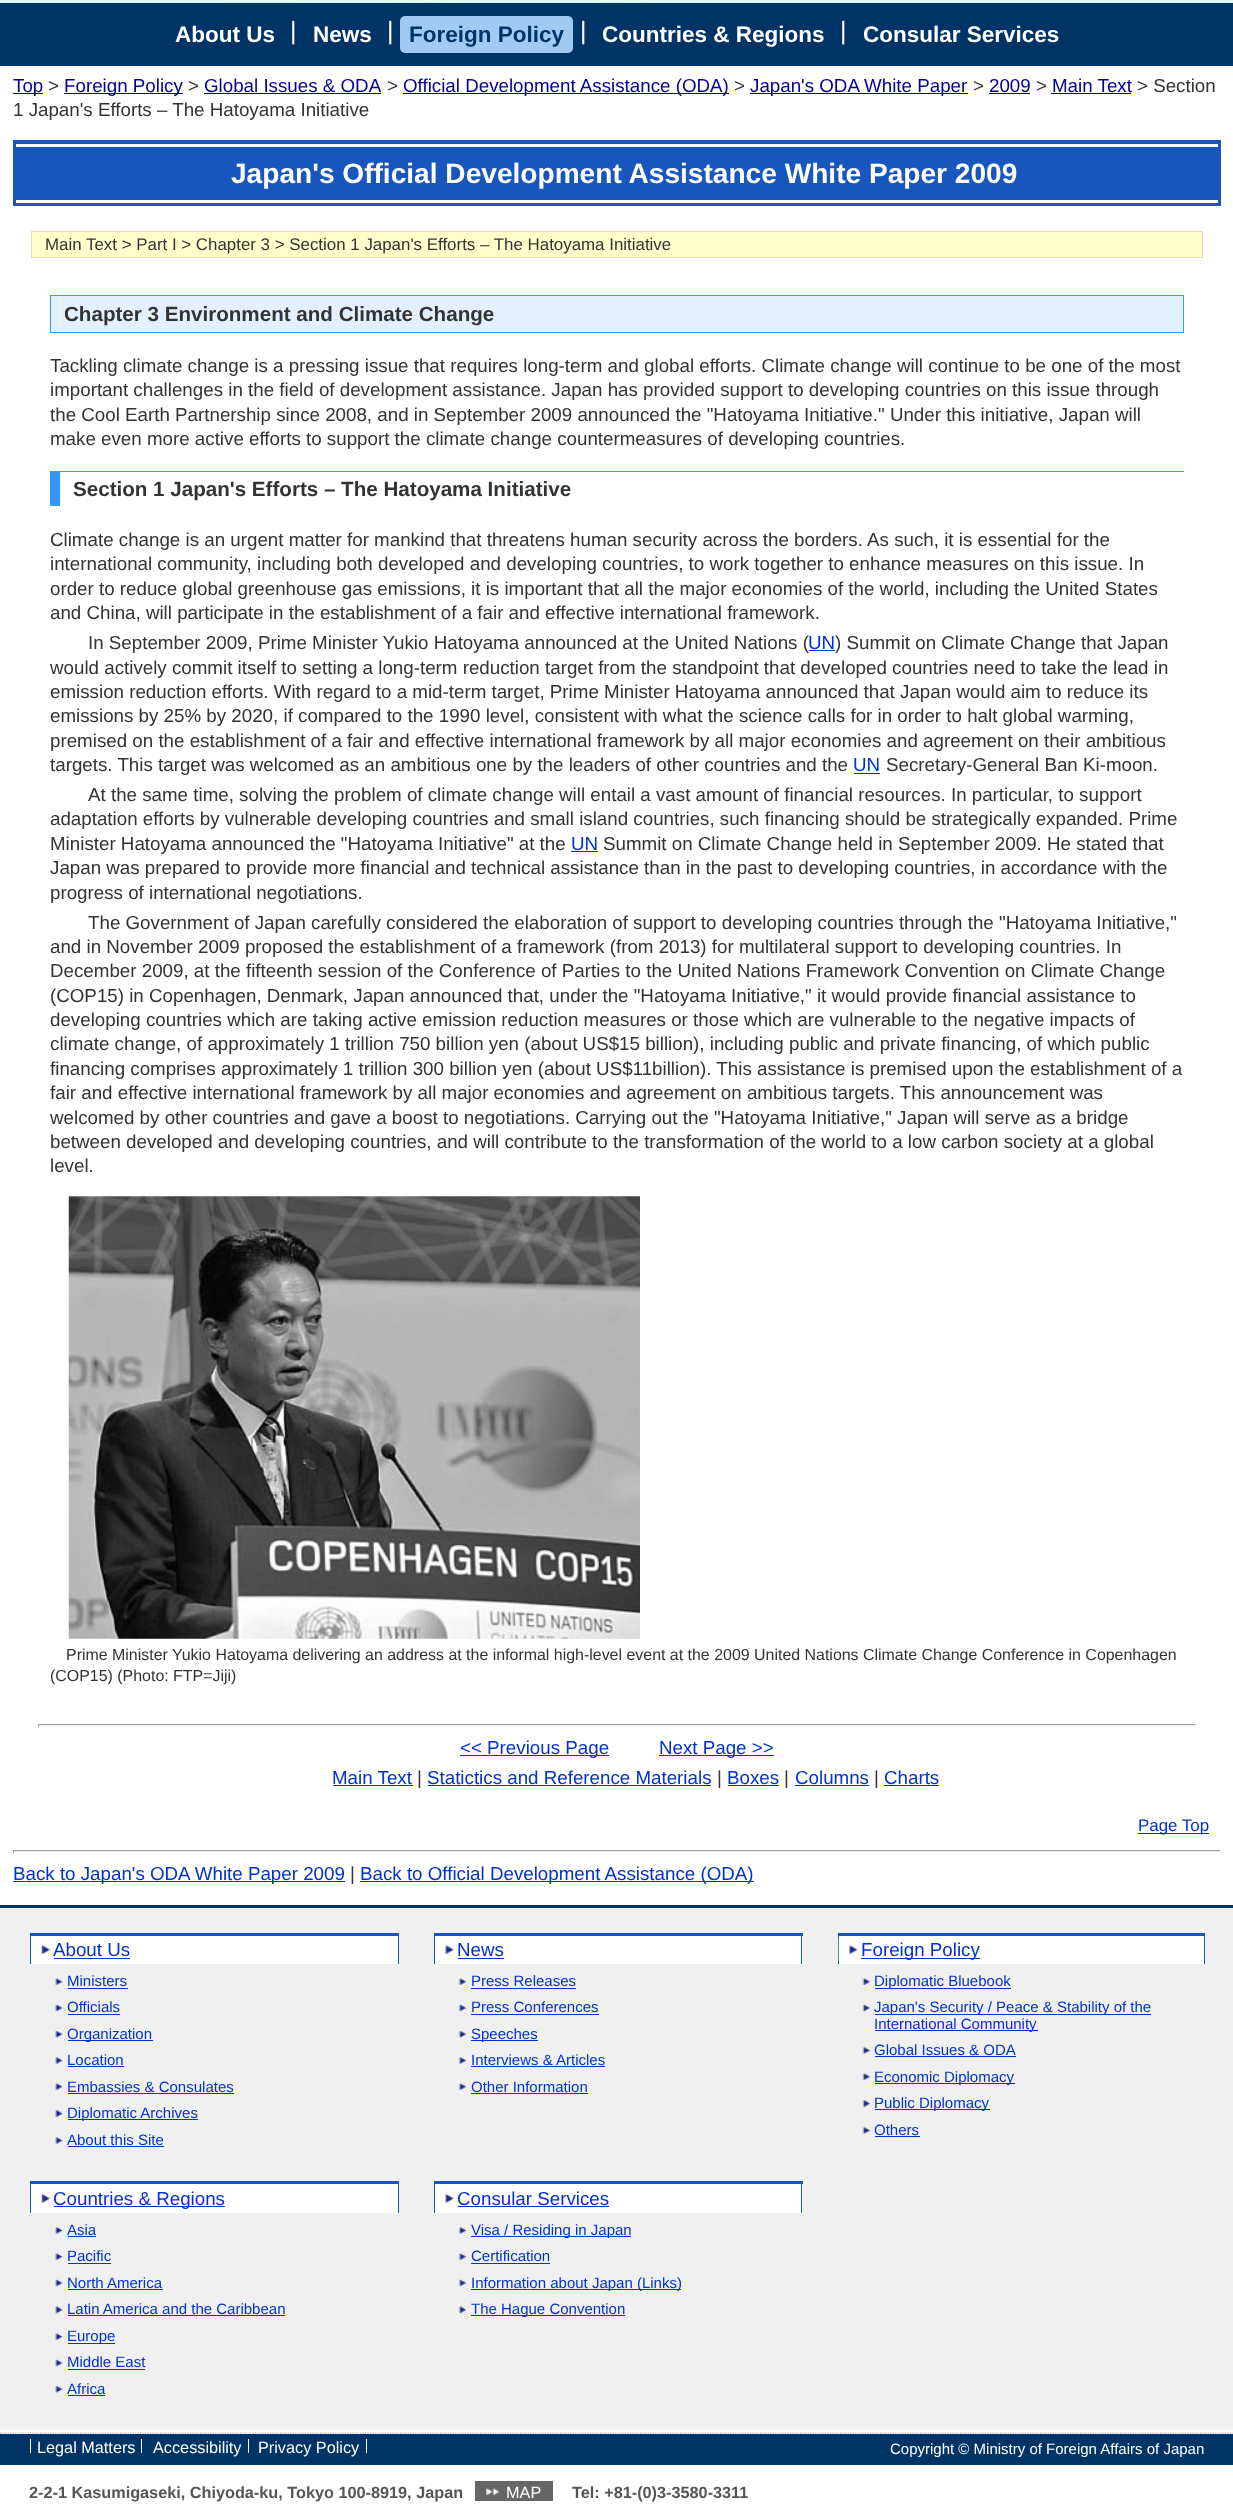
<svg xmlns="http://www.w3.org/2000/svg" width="1233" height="2517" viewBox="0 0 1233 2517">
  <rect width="100%" height="100%" fill="#ffffff"/>
  <image x="0" y="0" width="1233" height="3" href="img1.png"/>
  <image x="220" y="0" width="434" height="2" href="img2.png"/>
  <rect x="0" y="3" width="1233" height="63" fill="#003366"/>
  <text x="175" y="42" font-family="Liberation Sans" font-size="22.5" font-weight="bold" fill="#ffffff">About Us</text>
  <text x="290" y="39" font-family="Liberation Sans" font-size="25" fill="#ffffff">|</text>
  <text x="313" y="42" font-family="Liberation Sans" font-size="22.5" font-weight="bold" fill="#ffffff">News</text>
  <text x="387" y="39" font-family="Liberation Sans" font-size="25" fill="#ffffff">|</text>
  <rect x="400" y="16" width="173" height="37" rx="5" fill="#a1caf2"/>
  <text x="409" y="42" font-family="Liberation Sans" font-size="22.5" font-weight="bold" fill="#003366">Foreign Policy</text>
  <text x="580" y="39" font-family="Liberation Sans" font-size="25" fill="#ffffff">|</text>
  <text x="602" y="42" font-family="Liberation Sans" font-size="22.5" font-weight="bold" fill="#ffffff">Countries &amp; Regions</text>
  <text x="840" y="39" font-family="Liberation Sans" font-size="25" fill="#ffffff">|</text>
  <text x="863" y="42" font-family="Liberation Sans" font-size="22.5" font-weight="bold" fill="#ffffff">Consular Services</text>
  <rect x="13" y="93" width="30" height="1" fill="#000099"/>
  <text x="13" y="92" font-family="Liberation Sans" font-size="18.75" fill="#000099">Top</text>
  <text x="48" y="92" font-family="Liberation Sans" font-size="18.75" fill="#333333">&gt;</text>
  <rect x="64" y="93" width="119" height="1" fill="#000099"/>
  <text x="64" y="92" font-family="Liberation Sans" font-size="18.75" fill="#000099">Foreign Policy</text>
  <text x="188" y="92" font-family="Liberation Sans" font-size="18.75" fill="#333333">&gt;</text>
  <text x="204" y="92" font-family="Liberation Sans" font-size="18.75" fill="#000099">Global Issues &amp; ODA</text>
  <rect x="204" y="93" width="177" height="1" fill="#000099"/>
  <text x="387" y="92" font-family="Liberation Sans" font-size="18.75" fill="#333333">&gt;</text>
  <rect x="403" y="93" width="326" height="1" fill="#000099"/>
  <text x="403" y="92" font-family="Liberation Sans" font-size="18.75" fill="#000099">Official Development Assistance (ODA)</text>
  <text x="734" y="92" font-family="Liberation Sans" font-size="18.75" fill="#333333">&gt;</text>
  <rect x="750" y="93" width="218" height="1" fill="#000099"/>
  <text x="750" y="92" font-family="Liberation Sans" font-size="18.75" fill="#000099">Japan's ODA White Paper</text>
  <text x="973" y="92" font-family="Liberation Sans" font-size="18.75" fill="#333333">&gt;</text>
  <text x="989" y="92" font-family="Liberation Sans" font-size="18.75" fill="#000099">2009</text>
  <rect x="989" y="93" width="41" height="1" fill="#000099"/>
  <text x="1036" y="92" font-family="Liberation Sans" font-size="18.75" fill="#333333">&gt;</text>
  <text x="1052" y="92" font-family="Liberation Sans" font-size="18.75" fill="#000099">Main Text</text>
  <rect x="1051" y="93" width="80" height="1" fill="#000099"/>
  <text x="1137" y="92" font-family="Liberation Sans" font-size="18.75" fill="#333333">&gt; Section</text>
  <text x="13" y="116" font-family="Liberation Sans" font-size="18.75" fill="#333333">1 Japan's Efforts – The Hatoyama Initiative</text>
  <rect x="13" y="140" width="1208" height="66" fill="#1756bd"/>
  <rect x="16" y="144" width="1202" height="3" fill="#ffffff"/>
  <rect x="16" y="200" width="1202" height="3" fill="#ffffff"/>
  <text x="231" y="183" font-family="Liberation Sans" font-size="28.1" font-weight="bold" fill="#ffffff">Japan's Official Development Assistance White Paper 2009</text>
  <rect x="31.5" y="231.5" width="1171" height="26" fill="#ffffcc" stroke="#ead5bf"/>
  <text x="45" y="250" font-family="Liberation Sans" font-size="16.9" fill="#333333">Main Text &gt; Part I &gt; Chapter 3 &gt; Section 1 Japan's Efforts – The Hatoyama Initiative</text>
  <rect x="50.5" y="295.5" width="1133" height="37" fill="#e3f0ff" stroke="#3399ff"/>
  <text x="64" y="321" font-family="Liberation Sans" font-size="20.6" font-weight="bold" fill="#333333">Chapter 3 Environment and Climate Change</text>
  <text x="50" y="372" font-family="Liberation Sans" font-size="18.75" fill="#333333">Tackling climate change is a pressing issue that requires long-term and global efforts. Climate change will continue to be one of the most</text>
  <text x="50" y="396" font-family="Liberation Sans" font-size="18.75" fill="#333333">important challenges in the field of development assistance. Japan has provided support to developing countries on this issue through</text>
  <text x="50" y="421" font-family="Liberation Sans" font-size="18.75" fill="#333333">the Cool Earth Partnership since 2008, and in September 2009 announced the "Hatoyama Initiative." Under this initiative, Japan will</text>
  <text x="50" y="445" font-family="Liberation Sans" font-size="18.75" fill="#333333">make even more active efforts to support the climate change countermeasures of developing countries.</text>
  <rect x="60" y="471" width="1124" height="1" fill="#3399ff"/>
  <rect x="50" y="471" width="10" height="35" fill="#3399ff"/>
  <text x="73" y="496" font-family="Liberation Sans" font-size="20.6" font-weight="bold" fill="#333333">Section 1 Japan's Efforts – The Hatoyama Initiative</text>
  <text x="50" y="546" font-family="Liberation Sans" font-size="18.75" fill="#333333">Climate change is an urgent matter for mankind that threatens human security across the borders. As such, it is essential for the</text>
  <text x="50" y="570" font-family="Liberation Sans" font-size="18.75" fill="#333333">international community, including both developed and developing countries, to work together to enhance measures on this issue. In</text>
  <text x="50" y="595" font-family="Liberation Sans" font-size="18.75" fill="#333333">order to reduce global greenhouse gas emissions, it is important that all the major economies of the world, including the United States</text>
  <text x="50" y="619" font-family="Liberation Sans" font-size="18.75" fill="#333333">and China, will participate in the establishment of a fair and effective international framework.</text>
  <text x="88" y="649" font-family="Liberation Sans" font-size="18.75" fill="#333333">In September 2009, Prime Minister Yukio Hatoyama announced at the United Nations (</text>
  <text x="808" y="649" font-family="Liberation Sans" font-size="18.75" fill="#0033cc">UN</text>
  <rect x="809" y="650" width="26" height="1" fill="#0033cc"/>
  <text x="835" y="649" font-family="Liberation Sans" font-size="18.75" fill="#333333">) Summit on Climate Change that Japan</text>
  <text x="50" y="674" font-family="Liberation Sans" font-size="18.75" fill="#333333">would actively commit itself to setting a long-term reduction target from the standpoint that developed countries need to take the lead in</text>
  <text x="50" y="698" font-family="Liberation Sans" font-size="18.75" fill="#333333">emission reduction efforts. With regard to a mid-term target, Prime Minister Hatoyama announced that Japan would aim to reduce its</text>
  <text x="50" y="722" font-family="Liberation Sans" font-size="18.75" fill="#333333">emissions by 25% by 2020, if compared to the 1990 level, consistent with what the science calls for in order to halt global warming,</text>
  <text x="50" y="747" font-family="Liberation Sans" font-size="18.75" fill="#333333">premised on the establishment of a fair and effective international framework by all major economies and agreement on their ambitious</text>
  <text x="50" y="771" font-family="Liberation Sans" font-size="18.75" fill="#333333">targets. This target was welcomed as an ambitious one by the leaders of other countries and the</text>
  <text x="853" y="771" font-family="Liberation Sans" font-size="18.75" fill="#0033cc">UN</text>
  <rect x="854" y="773" width="26" height="1" fill="#0033cc"/>
  <text x="886" y="771" font-family="Liberation Sans" font-size="18.75" fill="#333333">Secretary-General Ban Ki-moon.</text>
  <text x="88" y="801" font-family="Liberation Sans" font-size="18.75" fill="#333333">At the same time, solving the problem of climate change will entail a vast amount of financial resources. In particular, to support</text>
  <text x="50" y="825" font-family="Liberation Sans" font-size="18.75" fill="#333333">adaptation efforts by vulnerable developing countries and small island countries, such financing should be strategically expanded. Prime</text>
  <text x="50" y="850" font-family="Liberation Sans" font-size="18.75" fill="#333333">Minister Hatoyama announced the "Hatoyama Initiative" at the</text>
  <text x="571" y="850" font-family="Liberation Sans" font-size="18.75" fill="#0033cc">UN</text>
  <rect x="571" y="851" width="27" height="1" fill="#0033cc"/>
  <text x="603" y="850" font-family="Liberation Sans" font-size="18.75" fill="#333333">Summit on Climate Change held in September 2009. He stated that</text>
  <text x="50" y="874" font-family="Liberation Sans" font-size="18.75" fill="#333333">Japan was prepared to provide more financial and technical assistance than in the past to developing countries, in accordance with the</text>
  <text x="50" y="899" font-family="Liberation Sans" font-size="18.75" fill="#333333">progress of international negotiations.</text>
  <text x="88" y="929" font-family="Liberation Sans" font-size="18.75" fill="#333333">The Government of Japan carefully considered the elaboration of support to developing countries through the "Hatoyama Initiative,"</text>
  <text x="50" y="953" font-family="Liberation Sans" font-size="18.75" fill="#333333">and in November 2009 proposed the establishment of a framework (from 2013) for multilateral support to developing countries. In</text>
  <text x="50" y="977" font-family="Liberation Sans" font-size="18.75" fill="#333333">December 2009, at the fifteenth session of the Conference of Parties to the United Nations Framework Convention on Climate Change</text>
  <text x="50" y="1002" font-family="Liberation Sans" font-size="18.75" fill="#333333">(COP15) in Copenhagen, Denmark, Japan announced that, under the "Hatoyama Initiative," it would provide financial assistance to</text>
  <text x="50" y="1026" font-family="Liberation Sans" font-size="18.75" fill="#333333">developing countries which are taking active emission reduction measures or those which are vulnerable to the negative impacts of</text>
  <text x="50" y="1050" font-family="Liberation Sans" font-size="18.75" fill="#333333">climate change, of approximately 1 trillion 750 billion yen (about US$15 billion), including public and private financing, of which public</text>
  <text x="50" y="1075" font-family="Liberation Sans" font-size="18.75" fill="#333333">financing comprises approximately 1 trillion 300 billion yen (about US$11billion). This assistance is premised upon the establishment of a</text>
  <text x="50" y="1099" font-family="Liberation Sans" font-size="18.75" fill="#333333">fair and effective international framework by all major economies and agreement on ambitious targets. This announcement was</text>
  <text x="50" y="1124" font-family="Liberation Sans" font-size="18.75" fill="#333333">welcomed by other countries and gave a boost to negotiations. Carrying out the "Hatoyama Initiative," Japan will serve as a bridge</text>
  <text x="50" y="1148" font-family="Liberation Sans" font-size="18.75" fill="#333333">between developed and developing countries, and will contribute to the transformation of the world to a low carbon society at a global</text>
  <text x="50" y="1172" font-family="Liberation Sans" font-size="18.75" fill="#333333">level.</text>
  <image x="68" y="1196" width="572" height="443" href="img3.png"/>
  <text x="66" y="1660" font-family="Liberation Sans" font-size="15.95" fill="#333333">Prime Minister Yukio Hatoyama delivering an address at the informal high-level event at the 2009 United Nations Climate Change Conference in Copenhagen</text>
  <text x="50" y="1681" font-family="Liberation Sans" font-size="15.95" fill="#333333">(COP15) (Photo: FTP=Jiji)</text>
  <rect x="38" y="1724" width="1158" height="1" fill="#9f9f9f"/>
  <rect x="1195" y="1724" width="1" height="3" fill="#eeeeee"/>
  <rect x="38" y="1725" width="1158" height="1" fill="#eeeeee"/>
  <rect x="38" y="1724" width="1" height="3" fill="#9f9f9f"/>
  <rect x="460" y="1755" width="149" height="1" fill="#0033cc"/>
  <text x="460" y="1754" font-family="Liberation Sans" font-size="18.75" fill="#0033cc">&lt;&lt; Previous Page</text>
  <rect x="659" y="1755" width="115" height="1" fill="#0033cc"/>
  <text x="659" y="1754" font-family="Liberation Sans" font-size="18.75" fill="#0033cc">Next Page &gt;&gt;</text>
  <text x="332" y="1784" font-family="Liberation Sans" font-size="18.75" fill="#0033cc">Main Text</text>
  <rect x="333" y="1785" width="80" height="1" fill="#0033cc"/>
  <text x="417" y="1784" font-family="Liberation Sans" font-size="18.75" fill="#333333">|</text>
  <text x="427" y="1784" font-family="Liberation Sans" font-size="18.75" fill="#0033cc">Statictics and Reference Materials</text>
  <rect x="428" y="1785" width="283" height="1" fill="#0033cc"/>
  <text x="717" y="1784" font-family="Liberation Sans" font-size="18.75" fill="#333333">|</text>
  <text x="727" y="1784" font-family="Liberation Sans" font-size="18.75" fill="#0033cc">Boxes</text>
  <rect x="728" y="1785" width="51" height="1" fill="#0033cc"/>
  <text x="784" y="1784" font-family="Liberation Sans" font-size="18.75" fill="#333333">|</text>
  <text x="795" y="1784" font-family="Liberation Sans" font-size="18.75" fill="#0033cc">Columns</text>
  <rect x="795" y="1785" width="74" height="1" fill="#0033cc"/>
  <text x="874" y="1784" font-family="Liberation Sans" font-size="18.75" fill="#333333">|</text>
  <text x="884" y="1784" font-family="Liberation Sans" font-size="18.75" fill="#0033cc">Charts</text>
  <rect x="884" y="1785" width="55" height="1" fill="#0033cc"/>
  <rect x="1138" y="1833" width="71" height="1" fill="#0033cc"/>
  <text x="1138" y="1831" font-family="Liberation Sans" font-size="16.9" fill="#0033cc">Page Top</text>
  <rect x="13" y="1850" width="1208" height="1" fill="#9f9f9f"/>
  <rect x="1220" y="1850" width="1" height="3" fill="#eeeeee"/>
  <rect x="13" y="1851" width="1208" height="1" fill="#eeeeee"/>
  <rect x="13" y="1850" width="1" height="3" fill="#9f9f9f"/>
  <rect x="13" y="1881" width="332" height="1" fill="#0033cc"/>
  <text x="13" y="1880" font-family="Liberation Sans" font-size="18.75" fill="#0033cc">Back to Japan's ODA White Paper 2009</text>
  <text x="350" y="1880" font-family="Liberation Sans" font-size="18.75" fill="#333333">|</text>
  <rect x="360" y="1881" width="394" height="1" fill="#0033cc"/>
  <text x="360" y="1880" font-family="Liberation Sans" font-size="18.75" fill="#0033cc">Back to Official Development Assistance (ODA)</text>
  <rect x="0" y="1908" width="1233" height="522" fill="#f0f0f0"/>
  <rect x="0" y="1905" width="1233" height="3" fill="#003366"/>
  <rect x="31" y="1936" width="367" height="28" fill="#ffffff"/>
  <rect x="30" y="1933" width="369" height="3" fill="#1756bd"/>
  <rect x="398" y="1933" width="1" height="31" fill="#1756bd"/>
  <rect x="30" y="1933" width="1" height="31" fill="#1756bd"/>
  <image x="41" y="1944" width="9" height="10" href="img4.png"/>
  <text x="53" y="1956" font-family="Liberation Sans" font-size="18.75" fill="#0033cc">About Us</text>
  <rect x="54" y="1958" width="76" height="1" fill="#0033cc"/>
  <image x="55" y="1978" width="8" height="7" href="img5.png"/>
  <text x="67" y="1986" font-family="Liberation Sans" font-size="15" fill="#0033cc">Ministers</text>
  <rect x="68" y="1988" width="60" height="1" fill="#0033cc"/>
  <image x="55" y="2004" width="8" height="8" href="img6.png"/>
  <text x="67" y="2012" font-family="Liberation Sans" font-size="15" fill="#0033cc">Officials</text>
  <rect x="68" y="2014" width="52" height="1" fill="#0033cc"/>
  <image x="55" y="2031" width="8" height="7" href="img7.png"/>
  <rect x="68" y="2040" width="85" height="1" fill="#0033cc"/>
  <text x="67" y="2039" font-family="Liberation Sans" font-size="15" fill="#0033cc">Organization</text>
  <image x="55" y="2057" width="8" height="7" href="img8.png"/>
  <text x="67" y="2065" font-family="Liberation Sans" font-size="15" fill="#0033cc">Location</text>
  <rect x="68" y="2066" width="56" height="1" fill="#0033cc"/>
  <image x="55" y="2083" width="8" height="7" href="img5.png"/>
  <text x="67" y="2092" font-family="Liberation Sans" font-size="15" fill="#0033cc">Embassies &amp; Consulates</text>
  <rect x="68" y="2093" width="166" height="1" fill="#0033cc"/>
  <image x="55" y="2110" width="8" height="8" href="img9.png"/>
  <rect x="68" y="2119" width="130" height="1" fill="#0033cc"/>
  <text x="67" y="2118" font-family="Liberation Sans" font-size="15" fill="#0033cc">Diplomatic Archives</text>
  <image x="55" y="2137" width="8" height="7" href="img8.png"/>
  <text x="67" y="2145" font-family="Liberation Sans" font-size="15" fill="#0033cc">About this Site</text>
  <rect x="68" y="2146" width="96" height="1" fill="#0033cc"/>
  <rect x="435" y="1936" width="368" height="28" fill="#ffffff"/>
  <rect x="434" y="1933" width="369" height="3" fill="#1756bd"/>
  <rect x="801" y="1933" width="1" height="31" fill="#1756bd"/>
  <rect x="434" y="1933" width="1" height="31" fill="#1756bd"/>
  <image x="445" y="1945" width="9" height="9" href="img10.png"/>
  <text x="457" y="1956" font-family="Liberation Sans" font-size="18.75" fill="#0033cc">News</text>
  <rect x="458" y="1958" width="46" height="1" fill="#0033cc"/>
  <image x="458" y="1978" width="8" height="7" href="img11.png"/>
  <text x="471" y="1986" font-family="Liberation Sans" font-size="15" fill="#0033cc">Press Releases</text>
  <rect x="471" y="1988" width="105" height="1" fill="#0033cc"/>
  <image x="458" y="2004" width="8" height="8" href="img12.png"/>
  <text x="471" y="2012" font-family="Liberation Sans" font-size="15" fill="#0033cc">Press Conferences</text>
  <rect x="471" y="2014" width="128" height="1" fill="#0033cc"/>
  <image x="458" y="2031" width="8" height="7" href="img13.png"/>
  <rect x="471" y="2040" width="67" height="1" fill="#0033cc"/>
  <text x="471" y="2039" font-family="Liberation Sans" font-size="15" fill="#0033cc">Speeches</text>
  <image x="458" y="2057" width="8" height="7" href="img14.png"/>
  <text x="471" y="2065" font-family="Liberation Sans" font-size="15" fill="#0033cc">Interviews &amp; Articles</text>
  <rect x="471" y="2066" width="134" height="1" fill="#0033cc"/>
  <image x="458" y="2083" width="8" height="7" href="img11.png"/>
  <text x="471" y="2092" font-family="Liberation Sans" font-size="15" fill="#0033cc">Other Information</text>
  <rect x="471" y="2093" width="117" height="1" fill="#0033cc"/>
  <rect x="839" y="1936" width="365" height="28" fill="#ffffff"/>
  <rect x="838" y="1933" width="367" height="3" fill="#1756bd"/>
  <rect x="1204" y="1933" width="1" height="31" fill="#1756bd"/>
  <rect x="838" y="1933" width="1" height="31" fill="#1756bd"/>
  <image x="838" y="1938" width="20" height="24" href="img15.png"/>
  <rect x="861" y="1958" width="119" height="1" fill="#0033cc"/>
  <text x="861" y="1956" font-family="Liberation Sans" font-size="18.75" fill="#0033cc">Foreign Policy</text>
  <image x="862" y="1978" width="8" height="7" href="img16.png"/>
  <rect x="875" y="1988" width="136" height="1" fill="#0033cc"/>
  <text x="874" y="1986" font-family="Liberation Sans" font-size="15" fill="#0033cc">Diplomatic Bluebook</text>
  <image x="862" y="2004" width="8" height="8" href="img17.png"/>
  <rect x="875" y="2014" width="276" height="1" fill="#0033cc"/>
  <text x="874" y="2012" font-family="Liberation Sans" font-size="15" fill="#0033cc">Japan's Security / Peace &amp; Stability of the</text>
  <rect x="875" y="2030" width="163" height="1" fill="#0033cc"/>
  <text x="874" y="2029" font-family="Liberation Sans" font-size="15" fill="#0033cc">International Community</text>
  <image x="862" y="2047" width="8" height="7" href="img18.png"/>
  <text x="874" y="2055" font-family="Liberation Sans" font-size="15" fill="#0033cc">Global Issues &amp; ODA</text>
  <rect x="875" y="2056" width="141" height="1" fill="#0033cc"/>
  <image x="862" y="2073" width="8" height="7" href="img16.png"/>
  <rect x="875" y="2083" width="140" height="1" fill="#0033cc"/>
  <text x="874" y="2082" font-family="Liberation Sans" font-size="15" fill="#0033cc">Economic Diplomacy</text>
  <image x="862" y="2100" width="8" height="8" href="img19.png"/>
  <rect x="875" y="2109" width="115" height="1" fill="#0033cc"/>
  <text x="874" y="2108" font-family="Liberation Sans" font-size="15" fill="#0033cc">Public Diplomacy</text>
  <image x="862" y="2127" width="8" height="7" href="img18.png"/>
  <text x="874" y="2135" font-family="Liberation Sans" font-size="15" fill="#0033cc">Others</text>
  <rect x="875" y="2136" width="45" height="1" fill="#0033cc"/>
  <rect x="31" y="2184" width="367" height="29" fill="#ffffff"/>
  <rect x="30" y="2181" width="369" height="3" fill="#1756bd"/>
  <rect x="398" y="2181" width="1" height="32" fill="#1756bd"/>
  <rect x="30" y="2181" width="1" height="32" fill="#1756bd"/>
  <image x="41" y="2193" width="9" height="10" href="img20.png"/>
  <rect x="54" y="2206" width="171" height="1" fill="#0033cc"/>
  <text x="53" y="2205" font-family="Liberation Sans" font-size="18.75" fill="#0033cc">Countries &amp; Regions</text>
  <image x="55" y="2227" width="8" height="7" href="img8.png"/>
  <text x="67" y="2235" font-family="Liberation Sans" font-size="15" fill="#0033cc">Asia</text>
  <rect x="68" y="2236" width="28" height="1" fill="#0033cc"/>
  <image x="55" y="2253" width="8" height="7" href="img5.png"/>
  <text x="67" y="2261" font-family="Liberation Sans" font-size="15" fill="#0033cc">Pacific</text>
  <rect x="68" y="2263" width="43" height="1" fill="#0033cc"/>
  <image x="55" y="2279" width="8" height="8" href="img6.png"/>
  <text x="67" y="2288" font-family="Liberation Sans" font-size="15" fill="#0033cc">North America</text>
  <rect x="68" y="2289" width="95" height="1" fill="#0033cc"/>
  <image x="55" y="2306" width="8" height="8" href="img21.png"/>
  <text x="67" y="2314" font-family="Liberation Sans" font-size="15" fill="#0033cc">Latin America and the Caribbean</text>
  <rect x="68" y="2315" width="217" height="1" fill="#0033cc"/>
  <image x="55" y="2333" width="8" height="7" href="img5.png"/>
  <rect x="68" y="2343" width="47" height="1" fill="#0033cc"/>
  <text x="67" y="2341" font-family="Liberation Sans" font-size="15" fill="#0033cc">Europe</text>
  <image x="55" y="2359" width="8" height="8" href="img6.png"/>
  <text x="67" y="2367" font-family="Liberation Sans" font-size="15" fill="#0033cc">Middle East</text>
  <rect x="68" y="2369" width="77" height="1" fill="#0033cc"/>
  <image x="55" y="2386" width="8" height="7" href="img7.png"/>
  <text x="67" y="2394" font-family="Liberation Sans" font-size="15" fill="#0033cc">Africa</text>
  <rect x="68" y="2395" width="37" height="1" fill="#0033cc"/>
  <rect x="435" y="2184" width="368" height="29" fill="#ffffff"/>
  <rect x="434" y="2181" width="369" height="3" fill="#1756bd"/>
  <rect x="801" y="2181" width="1" height="32" fill="#1756bd"/>
  <rect x="434" y="2181" width="1" height="32" fill="#1756bd"/>
  <image x="445" y="2193" width="9" height="10" href="img22.png"/>
  <text x="457" y="2205" font-family="Liberation Sans" font-size="18.75" fill="#0033cc">Consular Services</text>
  <rect x="458" y="2206" width="151" height="1" fill="#0033cc"/>
  <image x="458" y="2227" width="8" height="7" href="img14.png"/>
  <rect x="471" y="2236" width="160" height="1" fill="#0033cc"/>
  <text x="471" y="2235" font-family="Liberation Sans" font-size="15" fill="#0033cc">Visa / Residing in Japan</text>
  <image x="458" y="2253" width="8" height="7" href="img11.png"/>
  <text x="471" y="2261" font-family="Liberation Sans" font-size="15" fill="#0033cc">Certification</text>
  <rect x="471" y="2263" width="79" height="1" fill="#0033cc"/>
  <image x="458" y="2279" width="8" height="8" href="img12.png"/>
  <rect x="471" y="2289" width="210" height="1" fill="#0033cc"/>
  <text x="471" y="2288" font-family="Liberation Sans" font-size="15" fill="#0033cc">Information about Japan (Links)</text>
  <image x="458" y="2306" width="8" height="8" href="img23.png"/>
  <rect x="471" y="2315" width="154" height="1" fill="#0033cc"/>
  <text x="471" y="2314" font-family="Liberation Sans" font-size="15" fill="#0033cc">The Hague Convention</text>
  <path d="M0 2433H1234" fill="none" stroke="#aaaaaa" stroke-width="1.2" stroke-dasharray="1.25 1.25"/>
  <rect x="0" y="2434" width="1233" height="31" fill="#003366"/>
  <text x="37" y="2453" font-family="Liberation Sans" font-size="16.25" fill="#ffffff">Legal Matters</text>
  <rect x="141" y="2439" width="1" height="14" fill="#ffffff"/>
  <rect x="30" y="2439" width="1" height="14" fill="#ffffff"/>
  <text x="153" y="2453" font-family="Liberation Sans" font-size="16.25" fill="#ffffff">Accessibility</text>
  <rect x="248" y="2439" width="1" height="14" fill="#ffffff"/>
  <text x="258" y="2453" font-family="Liberation Sans" font-size="16.25" fill="#ffffff">Privacy Policy</text>
  <rect x="366" y="2439" width="1" height="14" fill="#ffffff"/>
  <text x="890" y="2454" font-family="Liberation Sans" font-size="15" fill="#ffffff">Copyright © Ministry of Foreign Affairs of Japan</text>
  <text x="29" y="2498" font-family="Liberation Sans" font-size="16.25" font-weight="bold" fill="#555555">2-2-1 Kasumigaseki, Chiyoda-ku, Tokyo 100-8919, Japan</text>
  <rect x="475" y="2481" width="78" height="20" fill="#666666"/>
  <image x="486" y="2488" width="13" height="7" href="img24.png"/>
  <text x="506" y="2498" font-family="Liberation Sans" font-size="16.25" fill="#ffffff">MAP</text>
  <text x="572" y="2498" font-family="Liberation Sans" font-size="16.25" font-weight="bold" fill="#555555">Tel: +81-(0)3-3580-3311</text>
</svg>
